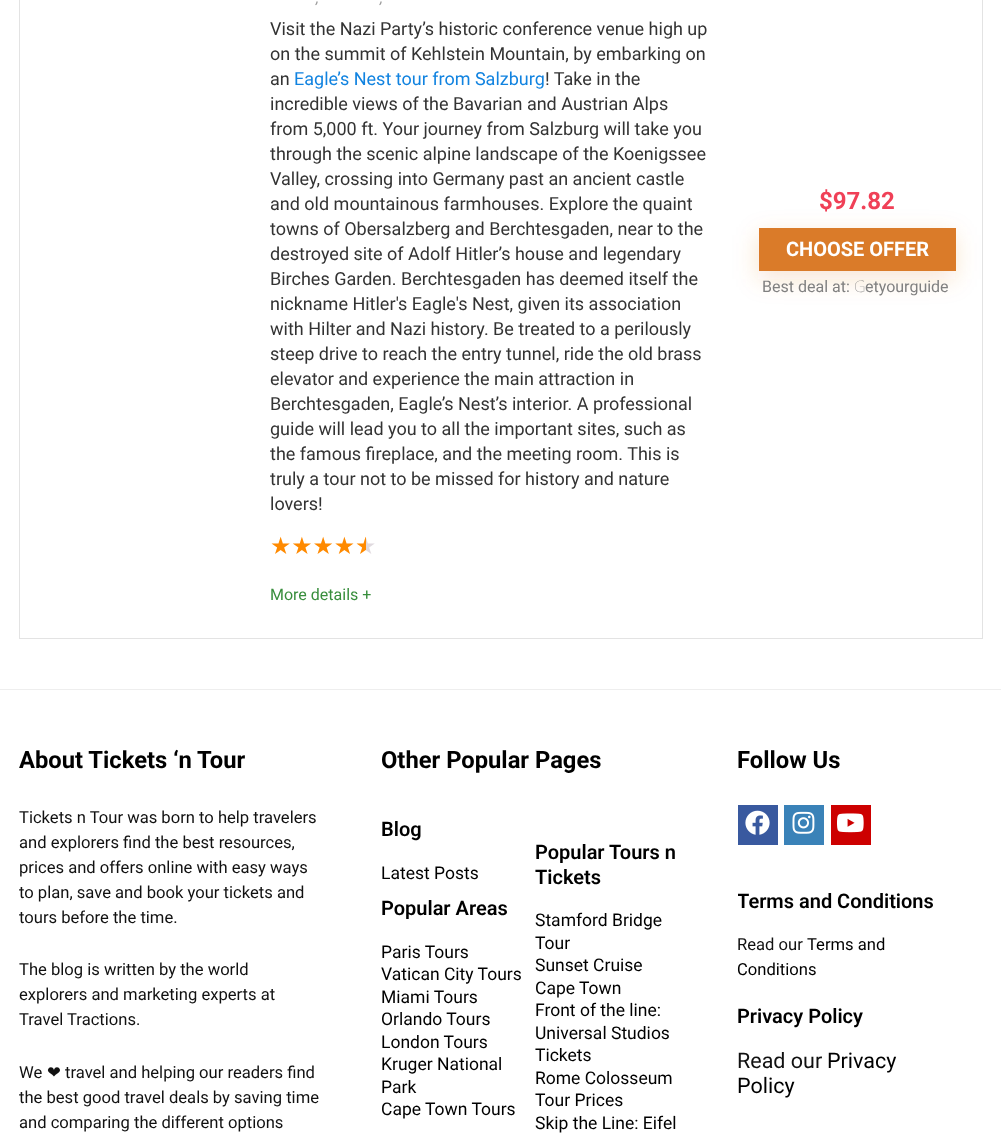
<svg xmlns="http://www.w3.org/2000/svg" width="1001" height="1137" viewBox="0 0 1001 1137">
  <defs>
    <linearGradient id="g1" gradientUnits="userSpaceOnUse" x1="355" y1="546" x2="377" y2="546"><stop offset="0" stop-color="#ff8a00"/><stop offset="0.5" stop-color="#ff8a00"/><stop offset="0.51" stop-color="#e0dadf"/><stop offset="1" stop-color="#e0dadf"/></linearGradient>
    <filter id="blur1" x="-50%" y="-200%" width="200%" height="500%"><feGaussianBlur stdDeviation="12"/></filter>
    <clipPath id="clip1"><rect x="738" y="876" width="198" height="134"/></clipPath>
  </defs>
  <rect width="100%" height="100%" fill="#ffffff"/>
  <rect x="19.5" y="-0.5" width="963" height="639" fill="none" stroke="#e3e3e3"/>
  <text x="316" y="3" font-family="Roboto" font-size="15" font-style="italic" fill="#999999">,</text>
  <text x="380" y="3" font-family="Roboto" font-size="15" font-style="italic" fill="#999999">,</text>
  <text x="270" y="35" font-family="Roboto" font-size="18" fill="#333333">Visit the Nazi Party’s historic conference venue high up</text>
  <text x="270" y="60" font-family="Roboto" font-size="18" fill="#333333">on the summit of Kehlstein Mountain, by embarking on</text>
  <text x="270" y="85" font-family="Roboto" font-size="18" fill="#333333">an</text>
  <text x="294" y="85" font-family="Roboto" font-size="18" fill="#1183e0">Eagle’s Nest tour from Salzburg</text>
  <text x="545" y="85" font-family="Roboto" font-size="18" fill="#333333">! Take in the</text>
  <text x="270" y="110" font-family="Roboto" font-size="18" fill="#333333">incredible views of the Bavarian and Austrian Alps</text>
  <text x="270" y="135" font-family="Roboto" font-size="18" fill="#333333">from 5,000 ft. Your journey from Salzburg will take you</text>
  <text x="270" y="160" font-family="Roboto" font-size="18" fill="#333333">through the scenic alpine landscape of the Koenigssee</text>
  <text x="270" y="185" font-family="Roboto" font-size="18" fill="#333333">Valley, crossing into Germany past an ancient castle</text>
  <text x="270" y="210" font-family="Roboto" font-size="18" fill="#333333">and old mountainous farmhouses. Explore the quaint</text>
  <text x="270" y="235" font-family="Roboto" font-size="18" fill="#333333">towns of Obersalzberg and Berchtesgaden, near to the</text>
  <text x="270" y="260" font-family="Roboto" font-size="18" fill="#333333">destroyed site of Adolf Hitler’s house and legendary</text>
  <text x="270" y="285" font-family="Roboto" font-size="18" fill="#333333">Birches Garden. Berchtesgaden has deemed itself the</text>
  <text x="270" y="310" font-family="Roboto" font-size="18" fill="#333333">nickname Hitler's Eagle's Nest, given its association</text>
  <text x="270" y="335" font-family="Roboto" font-size="18" fill="#333333">with Hilter and Nazi history. Be treated to a perilously</text>
  <text x="270" y="360" font-family="Roboto" font-size="18" fill="#333333">steep drive to reach the entry tunnel, ride the old brass</text>
  <text x="270" y="385" font-family="Roboto" font-size="18" fill="#333333">elevator and experience the main attraction in</text>
  <text x="270" y="410" font-family="Roboto" font-size="18" fill="#333333">Berchtesgaden, Eagle’s Nest’s interior. A professional</text>
  <text x="270" y="435" font-family="Roboto" font-size="18" fill="#333333">guide will lead you to all the important sites, such as</text>
  <text x="270" y="460" font-family="Roboto" font-size="18" fill="#333333">the famous fireplace, and the meeting room. This is</text>
  <text x="270" y="485" font-family="Roboto" font-size="18" fill="#333333">truly a tour not to be missed for history and nature</text>
  <text x="270" y="510" font-family="Roboto" font-size="18" fill="#333333">lovers!</text>
  <text x="270" y="554" font-family="DejaVu Sans" font-size="23.75" fill="#ff8a00">★★★★</text>
  <text x="355" y="554" font-family="DejaVu Sans" font-size="23.75" fill="url(#g1)">★</text>
  <text x="270" y="600" font-family="Roboto" font-size="16" fill="#388e3c">More details +</text>
  <text x="819" y="209" font-family="Roboto" font-size="24" font-weight="bold" fill="#f04057">$97.82</text>
  <rect x="758" y="235" width="197" height="44" fill="#da7b29" fill-opacity="0.2" filter="url(#blur1)"/>
  <rect x="759" y="228" width="197" height="43" fill="#da7b29"/>
  <text x="786" y="256" font-family="Roboto" font-size="20" font-weight="bold" fill="#ffffff">CHOOSE OFFER</text>
  <text x="762" y="292" font-family="Roboto" font-size="16" fill="#808080">Best deal at:</text>
  <text x="854" y="292" font-family="Noto Sans" font-size="16" font-weight="100" fill="#808080">G</text>
  <text x="865" y="292" font-family="Roboto" font-size="16" fill="#808080">etyourguide</text>
  <rect x="0" y="689" width="1001" height="1" fill="#eeeeee"/>
  <text x="19" y="768" font-family="Roboto" font-size="23.75" font-weight="bold" fill="#000000">About Tickets ‘n Tour</text>
  <text x="19" y="823" font-family="Roboto" font-size="16.6" fill="#111111">Tickets n Tour was born to help travelers</text>
  <text x="19" y="848" font-family="Roboto" font-size="16.6" fill="#111111">and explorers find the best resources,</text>
  <text x="19" y="873" font-family="Roboto" font-size="16.6" fill="#111111">prices and offers online with easy ways</text>
  <text x="19" y="898" font-family="Roboto" font-size="16.6" fill="#111111">to plan, save and book your tickets and</text>
  <text x="19" y="923" font-family="Roboto" font-size="16.6" fill="#111111">tours before the time.</text>
  <text x="19" y="975" font-family="Roboto" font-size="16.6" fill="#111111">The blog is written by the world</text>
  <text x="19" y="1000" font-family="Roboto" font-size="16.6" fill="#111111">explorers and marketing experts at</text>
  <text x="19" y="1025" font-family="Roboto" font-size="16.6" fill="#111111">Travel Tractions.</text>
  <text x="19" y="1078" font-family="Roboto" font-size="16.6" fill="#111111">We</text>
  <text x="47" y="1078" font-family="DejaVu Sans" font-size="16.6" fill="#111111">❤</text>
  <text x="65" y="1078" font-family="Roboto" font-size="16.6" fill="#111111">travel and helping our readers find</text>
  <text x="19" y="1103" font-family="Roboto" font-size="16.6" fill="#111111">the best good travel deals by saving time</text>
  <text x="19" y="1128" font-family="Roboto" font-size="16.6" fill="#111111">and comparing the different options</text>
  <text x="381" y="768" font-family="Roboto" font-size="23.75" font-weight="bold" fill="#000000">Other Popular Pages</text>
  <text x="381" y="836" font-family="Roboto" font-size="20" font-weight="600" fill="#000000">Blog</text>
  <text x="381" y="879" font-family="Roboto" font-size="17.5" fill="#000000">Latest Posts</text>
  <text x="381" y="915" font-family="Roboto" font-size="20" font-weight="600" fill="#000000">Popular Areas</text>
  <text x="381" y="958" font-family="Roboto" font-size="17.5" fill="#000000">Paris Tours</text>
  <text x="381" y="980" font-family="Roboto" font-size="17.5" fill="#000000">Vatican City Tours</text>
  <text x="381" y="1003" font-family="Roboto" font-size="17.5" fill="#000000">Miami Tours</text>
  <text x="381" y="1025" font-family="Roboto" font-size="17.5" fill="#000000">Orlando Tours</text>
  <text x="381" y="1048" font-family="Roboto" font-size="17.5" fill="#000000">London Tours</text>
  <text x="381" y="1070" font-family="Roboto" font-size="17.5" fill="#000000">Kruger National</text>
  <text x="381" y="1093" font-family="Roboto" font-size="17.5" fill="#000000">Park</text>
  <text x="381" y="1115" font-family="Roboto" font-size="17.5" fill="#000000">Cape Town Tours</text>
  <text x="535" y="859" font-family="Roboto" font-size="20" font-weight="600" fill="#000000">Popular Tours n</text>
  <text x="535" y="884" font-family="Roboto" font-size="20" font-weight="600" fill="#000000">Tickets</text>
  <text x="535" y="926" font-family="Roboto" font-size="17.5" fill="#000000">Stamford Bridge</text>
  <text x="535" y="949" font-family="Roboto" font-size="17.5" fill="#000000">Tour</text>
  <text x="535" y="971" font-family="Roboto" font-size="17.5" fill="#000000">Sunset Cruise</text>
  <text x="535" y="994" font-family="Roboto" font-size="17.5" fill="#000000">Cape Town</text>
  <text x="535" y="1016" font-family="Roboto" font-size="17.5" fill="#000000">Front of the line:</text>
  <text x="535" y="1039" font-family="Roboto" font-size="17.5" fill="#000000">Universal Studios</text>
  <text x="535" y="1061" font-family="Roboto" font-size="17.5" fill="#000000">Tickets</text>
  <text x="535" y="1084" font-family="Roboto" font-size="17.5" fill="#000000">Rome Colosseum</text>
  <text x="535" y="1106" font-family="Roboto" font-size="17.5" fill="#000000">Tour Prices</text>
  <text x="535" y="1129" font-family="Roboto" font-size="17.5" fill="#000000">Skip the Line: Eifel</text>
  <text x="737" y="768" font-family="Roboto" font-size="23.75" font-weight="bold" fill="#000000">Follow Us</text>
  <rect x="738" y="805" width="40" height="40" fill="#39599f"/>
  <image x="745" y="810" width="25" height="25" href="img1.png"/>
  <rect x="784" y="805" width="40" height="40" fill="#3a82b8"/>
  <image x="792" y="811" width="23" height="23" href="img2.png"/>
  <rect x="831" y="805" width="40" height="40" fill="#cd0000"/>
  <image x="837" y="813" width="27" height="20" href="img3.png"/>
  <g clip-path="url(#clip1)">
    <text x="737" y="908" font-family="Roboto" font-size="20" font-weight="600" fill="#000000">Terms and Conditions</text>
  </g>
  <text x="737" y="950" font-family="Roboto" font-size="16.6" fill="#111111">Read our</text>
  <text x="807" y="950" font-family="Roboto" font-size="16.6" fill="#000000">Terms and</text>
  <text x="737" y="975" font-family="Roboto" font-size="16.6" fill="#000000">Conditions</text>
  <text x="737" y="1023" font-family="Roboto" font-size="20" font-weight="600" fill="#000000">Privacy Policy</text>
  <text x="737" y="1068" font-family="Roboto" font-size="21.5" fill="#111111">Read our</text>
  <text x="827" y="1068" font-family="Roboto" font-size="21.5" fill="#000000">Privacy</text>
  <text x="737" y="1093" font-family="Roboto" font-size="21.5" fill="#000000">Policy</text>
</svg>
